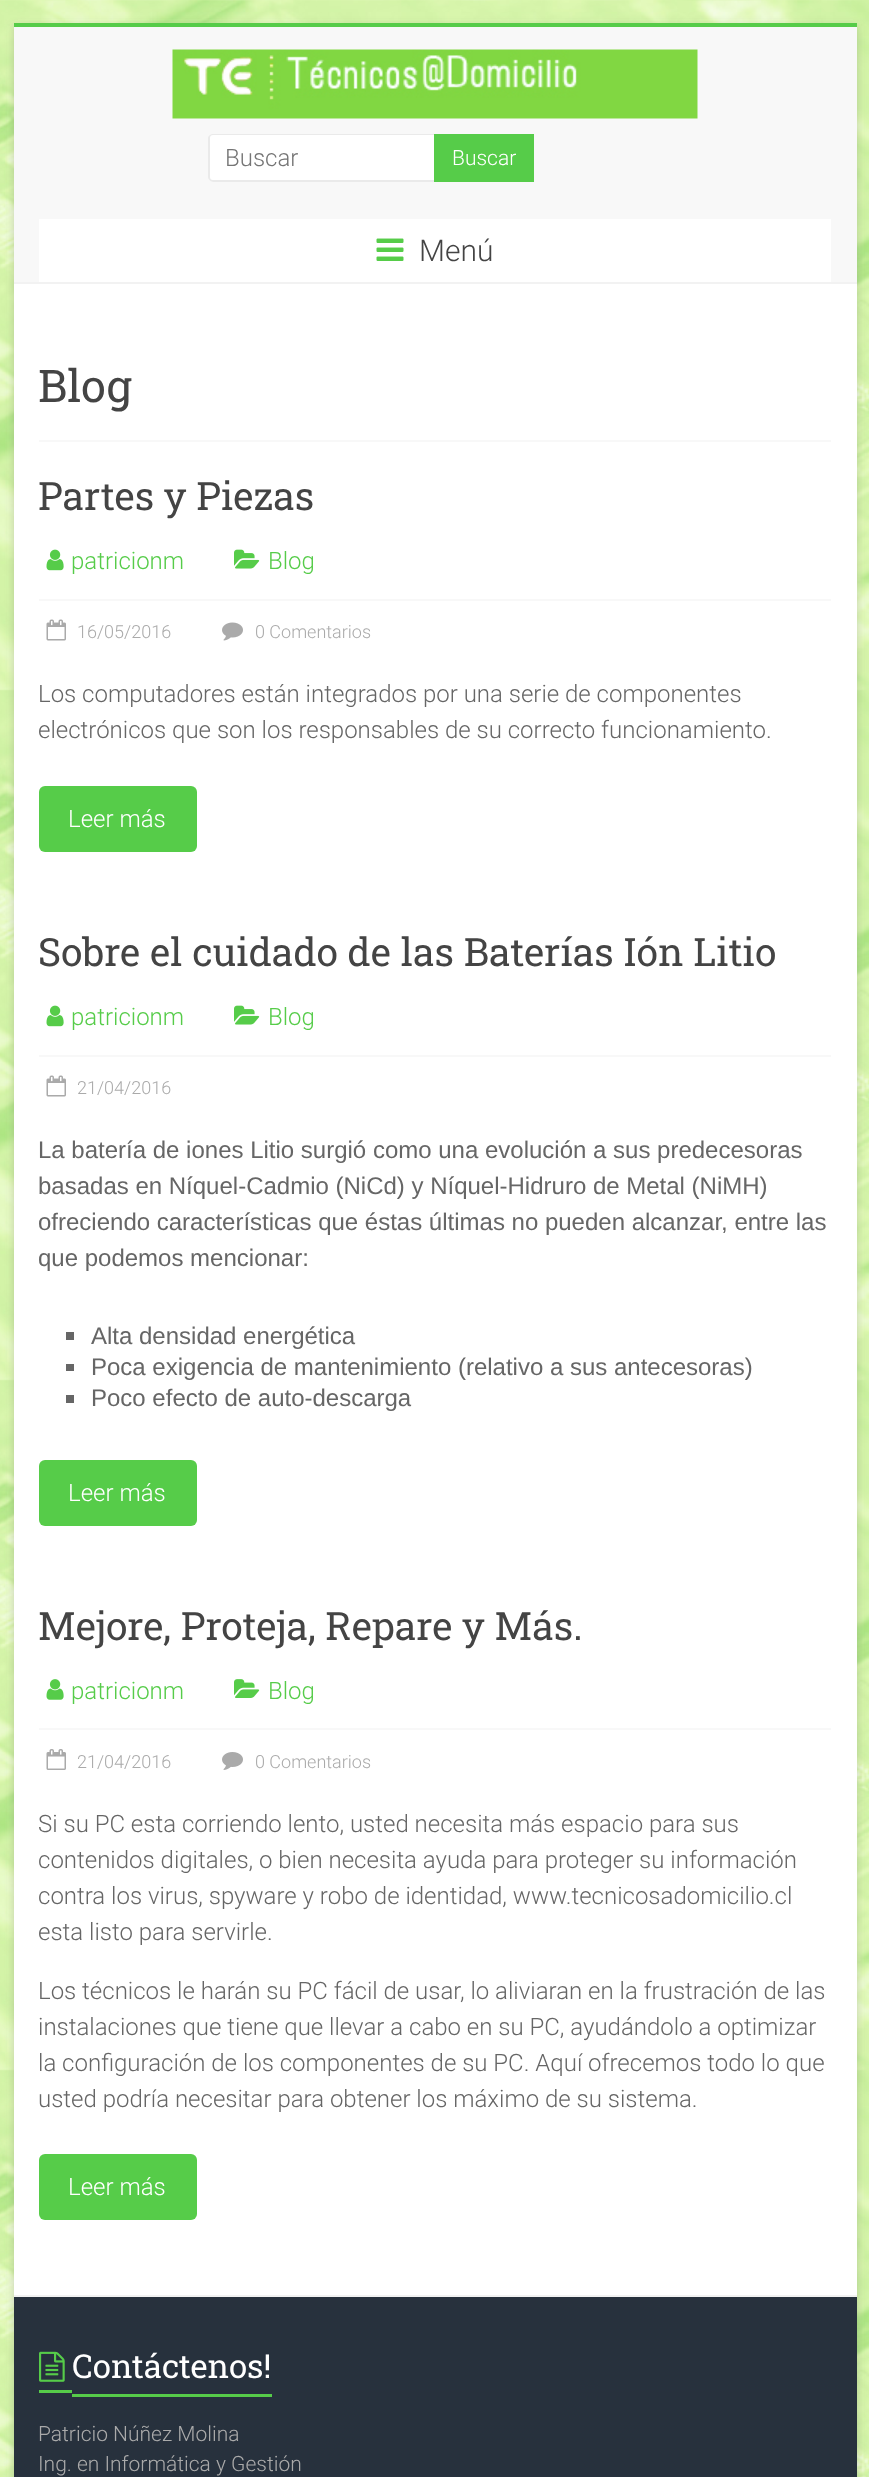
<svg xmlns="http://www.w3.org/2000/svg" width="869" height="2477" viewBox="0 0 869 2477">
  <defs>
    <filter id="blur1" x="-50%" y="-200%" width="200%" height="500%"><feGaussianBlur stdDeviation="4.5"/></filter>
  </defs>
  <rect width="100%" height="100%" fill="#ffffff"/>
  <image x="0" y="0" width="869" height="2477" href="img1.png"/>
  <rect x="14" y="26" width="843" height="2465" fill="#646464" fill-opacity="0.3" filter="url(#blur1)"/>
  <rect x="14" y="284" width="843" height="2011" fill="#ffffff"/>
  <rect x="14" y="23" width="843" height="4" fill="#56cc49"/>
  <rect x="14" y="27" width="843" height="255" fill="#f8f8f8"/>
  <rect x="14" y="282" width="843" height="2" fill="#f2f2f2"/>
  <image x="172" y="49" width="526" height="70" href="img2.png"/>
  <path d="M214 134H434V182H214C211 182 209 180 209 177V139C209 136 211 134 214 134Z" fill="#ffffff"/>
  <path d="M213 134H434V182H213C211 182 208 179 208 177V138C208 136 211 134 213 134ZM213 135H434V180H213C211 180 210 179 210 177V138C210 136 211 135 213 135Z" fill="#eaeaea" fill-rule="evenodd"/>
  <text x="225" y="166" font-family="Roboto" font-size="24" font-weight="300" fill="#757575">Buscar</text>
  <rect x="434" y="134" width="100" height="48" fill="#56cc49"/>
  <text x="452" y="165" font-family="Roboto" font-size="21" font-weight="300" fill="#ffffff">Buscar</text>
  <rect x="39" y="219" width="792" height="63" fill="#ffffff"/>
  <image x="376" y="238" width="28" height="23" href="img3.png"/>
  <text x="419" y="261" font-family="Roboto" font-size="30" font-weight="300" fill="#444444">Menú</text>
  <rect x="39" y="440" width="792" height="2" fill="#f8f8f8"/>
  <text x="38" y="402" font-family="Roboto Slab" font-size="45" fill="#444444">Blog</text>
  <text x="38" y="510" font-family="Roboto Slab" font-size="39" fill="#444444">Partes y Piezas</text>
  <image x="46" y="549" width="18" height="22" href="img4.png"/>
  <text x="71" y="569" font-family="Roboto" font-size="24" font-weight="300" fill="#56cc49">patricionm</text>
  <image x="234" y="549" width="26" height="20" href="img5.png"/>
  <text x="268" y="569" font-family="Roboto" font-size="24" font-weight="300" fill="#56cc49">Blog</text>
  <rect x="39" y="599" width="792" height="2" fill="#f8f8f8"/>
  <image x="46" y="619" width="20" height="22" href="img6.png"/>
  <text x="77" y="638" font-family="Roboto" font-size="18" font-weight="300" fill="#aaaaaa">16/05/2016</text>
  <image x="222" y="622" width="21" height="19" href="img7.png"/>
  <text x="255" y="638" font-family="Roboto" font-size="18" font-weight="300" fill="#aaaaaa">0 Comentarios</text>
  <text x="38" y="702" font-family="Roboto" font-size="24" font-weight="300" fill="#666666">Los computadores están integrados por una serie de componentes</text>
  <text x="38" y="738" font-family="Roboto" font-size="24" font-weight="300" fill="#666666">electrónicos que son los responsables de su correcto funcionamiento.</text>
  <rect x="39" y="786" width="158" height="66" rx="6" fill="#56cc49"/>
  <text x="68" y="827" font-family="Roboto" font-size="24" font-weight="300" fill="#ffffff">Leer más</text>
  <text x="38" y="966" font-family="Roboto Slab" font-size="39" fill="#444444">Sobre el cuidado de las Baterías Ión Litio</text>
  <image x="46" y="1005" width="18" height="22" href="img4.png"/>
  <text x="71" y="1025" font-family="Roboto" font-size="24" font-weight="300" fill="#56cc49">patricionm</text>
  <image x="234" y="1005" width="26" height="20" href="img5.png"/>
  <text x="268" y="1025" font-family="Roboto" font-size="24" font-weight="300" fill="#56cc49">Blog</text>
  <rect x="39" y="1055" width="792" height="2" fill="#f8f8f8"/>
  <image x="46" y="1075" width="20" height="22" href="img6.png"/>
  <text x="77" y="1094" font-family="Roboto" font-size="18" font-weight="300" fill="#aaaaaa">21/04/2016</text>
  <text x="38" y="1158" font-family="Liberation Sans" font-size="24" fill="#666666">La batería de iones Litio surgió como una evolución a sus predecesoras</text>
  <text x="38" y="1194" font-family="Liberation Sans" font-size="24" fill="#666666">basadas en Níquel-Cadmio (NiCd) y Níquel-Hidruro de Metal (NiMH)</text>
  <text x="38" y="1230" font-family="Liberation Sans" font-size="24" fill="#666666">ofreciendo características que éstas últimas no pueden alcanzar, entre las</text>
  <text x="38" y="1266" font-family="Liberation Sans" font-size="24" fill="#666666">que podemos mencionar:</text>
  <rect x="66" y="1332" width="8" height="8" fill="#666666"/>
  <text x="91" y="1344" font-family="Liberation Sans" font-size="24" fill="#666666">Alta densidad energética</text>
  <rect x="66" y="1364" width="8" height="7" fill="#666666"/>
  <text x="91" y="1375" font-family="Liberation Sans" font-size="24" fill="#666666">Poca exigencia de mantenimiento (relativo a sus antecesoras)</text>
  <rect x="66" y="1395" width="8" height="8" fill="#666666"/>
  <text x="91" y="1406" font-family="Liberation Sans" font-size="24" fill="#666666">Poco efecto de auto-descarga</text>
  <rect x="39" y="1460" width="158" height="66" rx="6" fill="#56cc49"/>
  <text x="68" y="1501" font-family="Roboto" font-size="24" font-weight="300" fill="#ffffff">Leer más</text>
  <text x="38" y="1640" font-family="Roboto Slab" font-size="39" fill="#444444">Mejore, Proteja, Repare y Más.</text>
  <image x="46" y="1679" width="18" height="21" href="img8.png"/>
  <text x="71" y="1699" font-family="Roboto" font-size="24" font-weight="300" fill="#56cc49">patricionm</text>
  <image x="234" y="1679" width="26" height="19" href="img9.png"/>
  <text x="268" y="1699" font-family="Roboto" font-size="24" font-weight="300" fill="#56cc49">Blog</text>
  <rect x="39" y="1728" width="792" height="2" fill="#f8f8f8"/>
  <image x="46" y="1749" width="20" height="21" href="img10.png"/>
  <text x="77" y="1768" font-family="Roboto" font-size="18" font-weight="300" fill="#aaaaaa">21/04/2016</text>
  <image x="222" y="1752" width="21" height="18" href="img11.png"/>
  <text x="255" y="1768" font-family="Roboto" font-size="18" font-weight="300" fill="#aaaaaa">0 Comentarios</text>
  <text x="38" y="1832" font-family="Roboto" font-size="24" font-weight="300" fill="#666666">Si su PC esta corriendo lento, usted necesita más espacio para sus</text>
  <text x="38" y="1868" font-family="Roboto" font-size="24" font-weight="300" fill="#666666">contenidos digitales, o bien necesita ayuda para proteger su información</text>
  <text x="38" y="1904" font-family="Roboto" font-size="24" font-weight="300" fill="#666666">contra los virus, spyware y robo de identidad, www.tecnicosadomicilio.cl</text>
  <text x="38" y="1940" font-family="Roboto" font-size="24" font-weight="300" fill="#666666">esta listo para servirle.</text>
  <text x="38" y="1999" font-family="Roboto" font-size="24" font-weight="300" fill="#666666">Los técnicos le harán su PC fácil de usar, lo aliviaran en la frustración de las</text>
  <text x="38" y="2035" font-family="Roboto" font-size="24" font-weight="300" fill="#666666">instalaciones que tiene que llevar a cabo en su PC, ayudándolo a optimizar</text>
  <text x="38" y="2071" font-family="Roboto" font-size="24" font-weight="300" fill="#666666">la configuración de los componentes de su PC. Aquí ofrecemos todo lo que</text>
  <text x="38" y="2107" font-family="Roboto" font-size="24" font-weight="300" fill="#666666">usted podría necesitar para obtener los máximo de su sistema.</text>
  <rect x="39" y="2154" width="158" height="66" rx="6" fill="#56cc49"/>
  <text x="68" y="2195" font-family="Roboto" font-size="24" font-weight="300" fill="#ffffff">Leer más</text>
  <rect x="14" y="2297" width="843" height="180" fill="#27313d"/>
  <rect x="14" y="2295" width="843" height="2" fill="#f2f2f2"/>
  <image x="39" y="2351" width="26" height="31" href="img12.png"/>
  <text x="72" y="2378" font-family="Roboto Slab" font-size="33" fill="#ffffff">Contáctenos!</text>
  <rect x="39" y="2390" width="33" height="3" fill="#56cc49"/>
  <rect x="72" y="2394" width="200" height="3" fill="#56cc49"/>
  <text x="38" y="2441" font-family="Roboto" font-size="21" font-weight="300" fill="#aaaaaa">Patricio Núñez Molina</text>
  <text x="38" y="2471" font-family="Roboto" font-size="21" font-weight="300" fill="#aaaaaa">Ing. en Informática y Gestión</text>
</svg>
